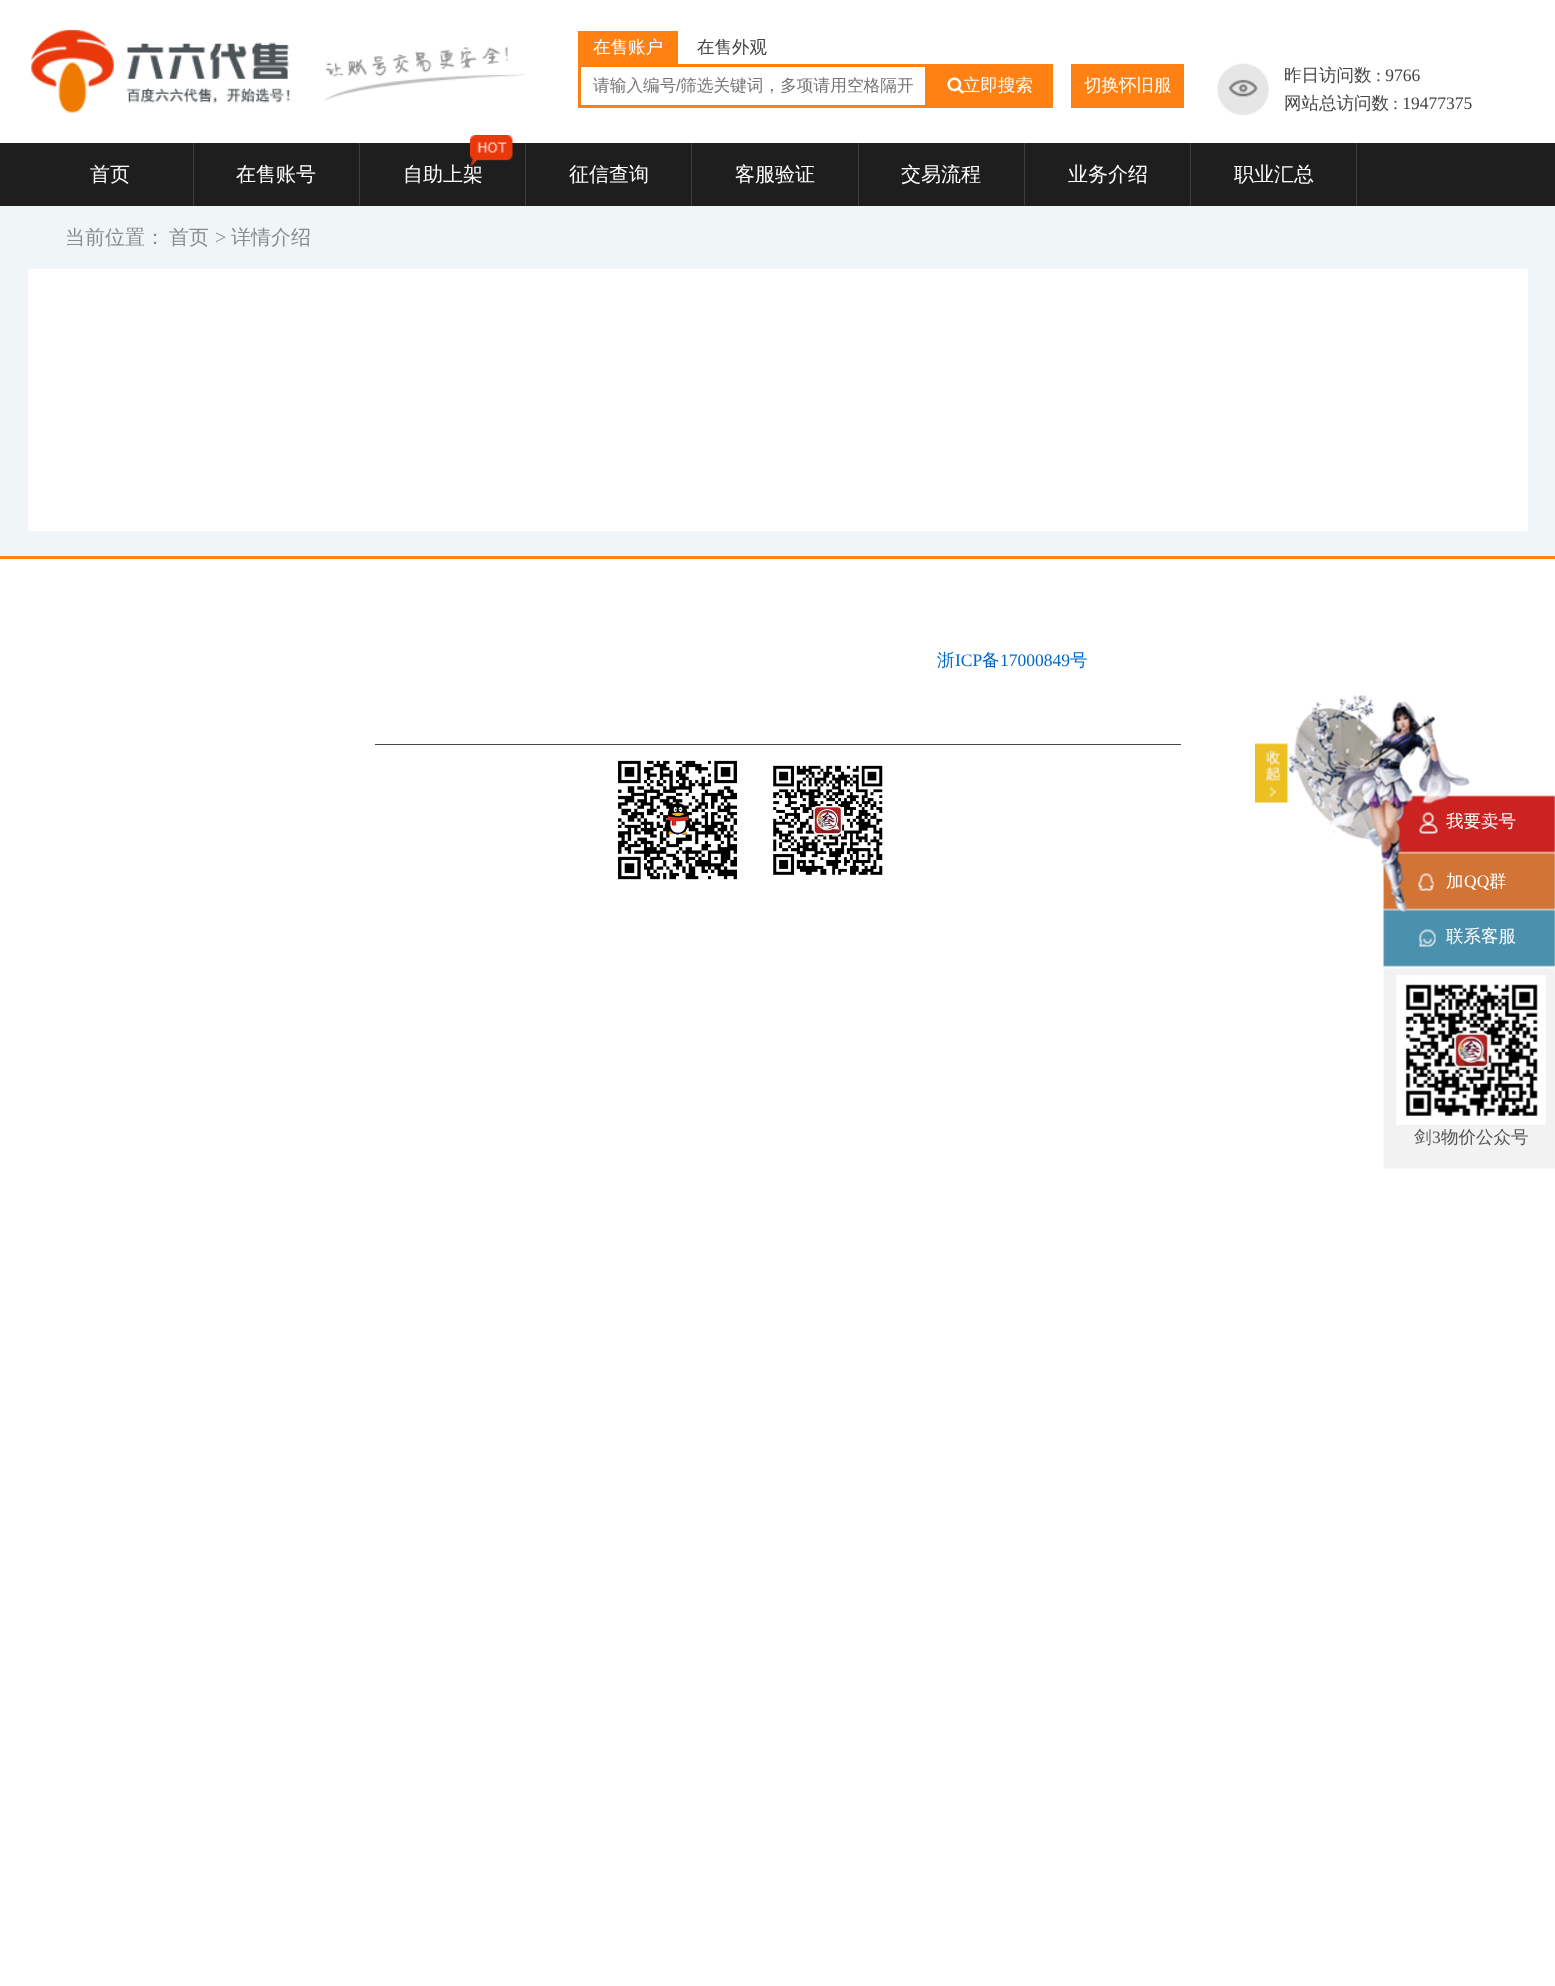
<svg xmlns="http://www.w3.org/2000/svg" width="1555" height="1986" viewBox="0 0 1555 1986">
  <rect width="100%" height="100%" fill="#ffffff"/>
  <image x="31" y="29" width="496" height="84" href="img1.png"/>
  <rect x="578" y="31" width="100" height="33" fill="#ff8113"/>
  <text x="593" y="53" font-family="WenQuanYi Zen Hei" font-size="17.5" font-weight="500" fill="#ffffff">在售账户</text>
  <text x="697" y="53" font-family="WenQuanYi Zen Hei" font-size="17.5" font-weight="500" fill="#444444">在售外观</text>
  <rect x="579.5" y="65.5" width="347" height="41" fill="none" stroke="#ff8113" stroke-width="3"/>
  <text x="593" y="91" font-family="WenQuanYi Zen Hei" font-size="16.7" font-weight="500" fill="#757575">请输入编号</text>
  <text x="676" y="91" font-family="Liberation Sans" font-size="16.7" fill="#757575">/</text>
  <text x="680" y="91" font-family="WenQuanYi Zen Hei" font-size="16.7" font-weight="500" fill="#757575">筛选关键词，多项请用空格隔开</text>
  <rect x="928" y="64" width="125" height="44" fill="#ff8113"/>
  <image x="947" y="77" width="17" height="17" href="img2.png"/>
  <text x="963" y="91" font-family="WenQuanYi Zen Hei" font-size="17.5" font-weight="500" fill="#ffffff">立即搜索</text>
  <rect x="1071" y="64" width="113" height="44" fill="#ff8113"/>
  <text x="1084" y="91" font-family="WenQuanYi Zen Hei" font-size="17.5" font-weight="500" fill="#ffffff">切换怀旧服</text>
  <image x="1217" y="63" width="52" height="52" href="img3.png"/>
  <text x="1284" y="81" font-family="WenQuanYi Zen Hei" font-size="17.5" font-weight="500" fill="#444444">昨日访问数</text>
  <text x="1376" y="81" font-family="Liberation Serif" font-size="17.5" fill="#444444">: 9766</text>
  <text x="1284" y="109" font-family="WenQuanYi Zen Hei" font-size="17.5" font-weight="500" fill="#444444">网站总访问数</text>
  <text x="1393" y="109" font-family="Liberation Serif" font-size="17.5" fill="#444444">: 19477375</text>
  <rect x="0" y="143" width="1555" height="63" fill="#1e1e1e"/>
  <rect x="193" y="143" width="1" height="63" fill="#3e3e3e"/>
  <text x="90" y="181" font-family="WenQuanYi Zen Hei" font-size="20" font-weight="500" fill="#ffffff">首页</text>
  <rect x="359" y="143" width="1" height="63" fill="#3e3e3e"/>
  <text x="236" y="181" font-family="WenQuanYi Zen Hei" font-size="20" font-weight="500" fill="#ffffff">在售账号</text>
  <rect x="525" y="143" width="1" height="63" fill="#3e3e3e"/>
  <text x="403" y="181" font-family="WenQuanYi Zen Hei" font-size="20" font-weight="500" fill="#ffffff">自助上架</text>
  <image x="470" y="135" width="43" height="33" href="img4.png"/>
  <rect x="691" y="143" width="1" height="63" fill="#3e3e3e"/>
  <text x="569" y="181" font-family="WenQuanYi Zen Hei" font-size="20" font-weight="500" fill="#ffffff">征信查询</text>
  <rect x="858" y="143" width="1" height="63" fill="#3e3e3e"/>
  <text x="735" y="181" font-family="WenQuanYi Zen Hei" font-size="20" font-weight="500" fill="#ffffff">客服验证</text>
  <rect x="1024" y="143" width="1" height="63" fill="#3e3e3e"/>
  <text x="901" y="181" font-family="WenQuanYi Zen Hei" font-size="20" font-weight="500" fill="#ffffff">交易流程</text>
  <rect x="1190" y="143" width="1" height="63" fill="#3e3e3e"/>
  <text x="1068" y="181" font-family="WenQuanYi Zen Hei" font-size="20" font-weight="500" fill="#ffffff">业务介绍</text>
  <rect x="1356" y="143" width="1" height="63" fill="#3e3e3e"/>
  <text x="1234" y="181" font-family="WenQuanYi Zen Hei" font-size="20" font-weight="500" fill="#ffffff">职业汇总</text>
  <rect x="0" y="206" width="1555" height="350" fill="#f0f5f8"/>
  <text x="65" y="244" font-family="WenQuanYi Zen Hei" font-size="20" font-weight="500" fill="#8c8c8c">当前位置：</text>
  <text x="169" y="244" font-family="WenQuanYi Zen Hei" font-size="20" font-weight="500" fill="#8c8c8c">首页</text>
  <text x="215" y="244" font-family="Liberation Serif" font-size="20" fill="#8c8c8c">&gt;</text>
  <text x="231" y="244" font-family="WenQuanYi Zen Hei" font-size="20" font-weight="500" fill="#8c8c8c">详情介绍</text>
  <rect x="28" y="269" width="1500" height="262" fill="#ffffff"/>
  <rect x="0" y="556" width="1555" height="3" fill="#ff8113"/>
  <text x="937" y="666" font-family="WenQuanYi Zen Hei" font-size="17.5" font-weight="500" fill="#0066cc">浙</text>
  <text x="955" y="666" font-family="Liberation Serif" font-size="17.5" fill="#0066cc">ICP</text>
  <text x="982" y="666" font-family="WenQuanYi Zen Hei" font-size="17.5" font-weight="500" fill="#0066cc">备</text>
  <text x="1000" y="666" font-family="Liberation Serif" font-size="17.5" fill="#0066cc">17000849</text>
  <text x="1070" y="666" font-family="WenQuanYi Zen Hei" font-size="17.5" font-weight="500" fill="#0066cc">号</text>
  <rect x="375" y="744" width="806" height="1" fill="#48494a"/>
  <image x="618" y="760" width="120" height="120" href="img5.png"/>
  <image x="773" y="765" width="110" height="110" href="img6.png"/>
  <image x="1288" y="694" width="267" height="475" href="img7.png"/>
  <image x="1255" y="743" width="33" height="60" href="img8.png"/>
  <text x="1446" y="827" font-family="WenQuanYi Zen Hei" font-size="17.5" font-weight="500" fill="#ffffff">我要卖号</text>
  <text x="1446" y="887" font-family="WenQuanYi Zen Hei" font-size="17.5" font-weight="500" fill="#ffffff">加</text>
  <text x="1464" y="887" font-family="Liberation Serif" font-size="17.5" fill="#ffffff">QQ</text>
  <text x="1489" y="887" font-family="WenQuanYi Zen Hei" font-size="17.5" font-weight="500" fill="#ffffff">群</text>
  <text x="1446" y="942" font-family="WenQuanYi Zen Hei" font-size="17.5" font-weight="500" fill="#ffffff">联系客服</text>
  <image x="1396" y="975" width="150" height="150" href="img9.png"/>
  <text x="1414" y="1143" font-family="WenQuanYi Zen Hei" font-size="17.5" font-weight="500" fill="#555555">剑</text>
  <text x="1432" y="1143" font-family="Liberation Serif" font-size="17.5" fill="#555555">3</text>
  <text x="1441" y="1143" font-family="WenQuanYi Zen Hei" font-size="17.5" font-weight="500" fill="#555555">物价公众号</text>
</svg>
